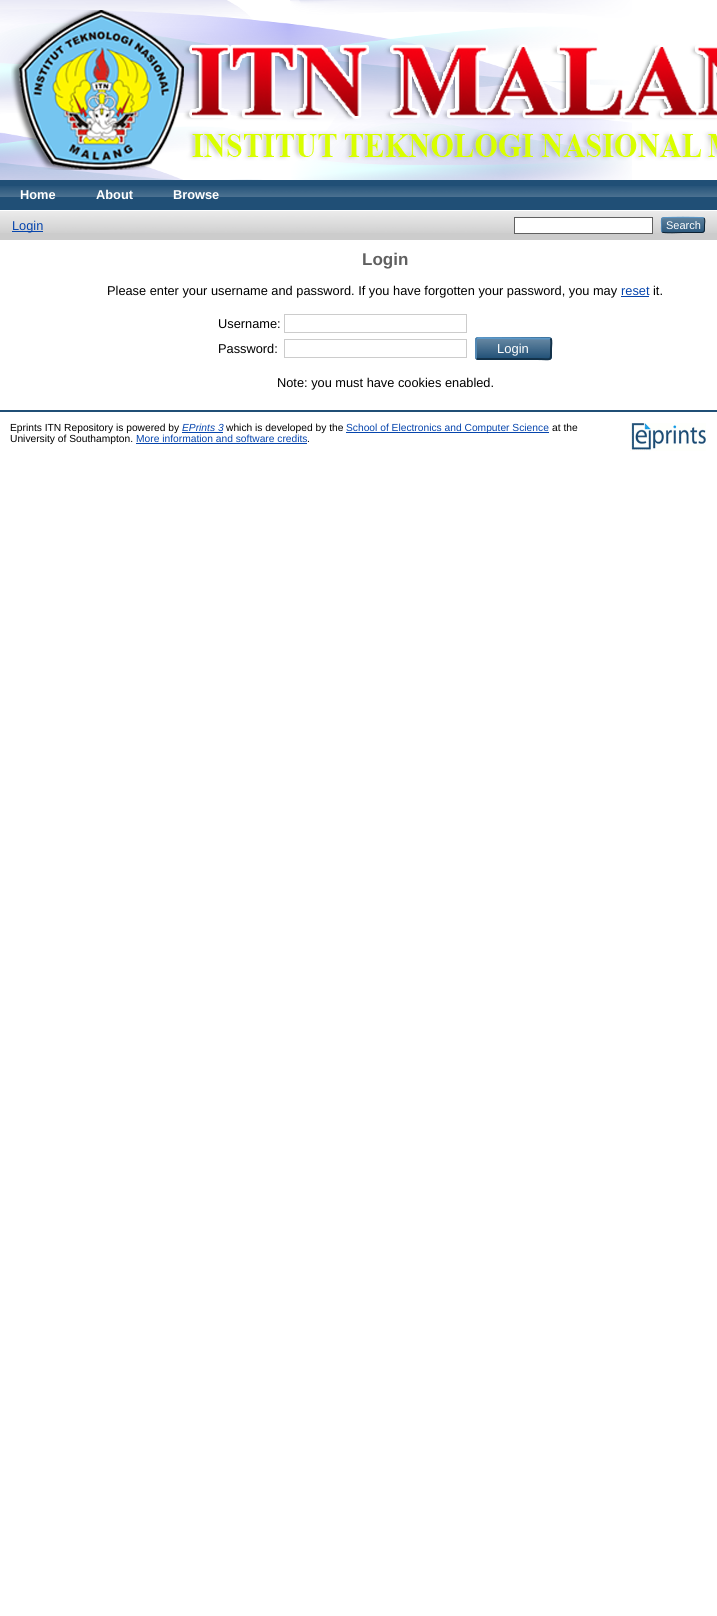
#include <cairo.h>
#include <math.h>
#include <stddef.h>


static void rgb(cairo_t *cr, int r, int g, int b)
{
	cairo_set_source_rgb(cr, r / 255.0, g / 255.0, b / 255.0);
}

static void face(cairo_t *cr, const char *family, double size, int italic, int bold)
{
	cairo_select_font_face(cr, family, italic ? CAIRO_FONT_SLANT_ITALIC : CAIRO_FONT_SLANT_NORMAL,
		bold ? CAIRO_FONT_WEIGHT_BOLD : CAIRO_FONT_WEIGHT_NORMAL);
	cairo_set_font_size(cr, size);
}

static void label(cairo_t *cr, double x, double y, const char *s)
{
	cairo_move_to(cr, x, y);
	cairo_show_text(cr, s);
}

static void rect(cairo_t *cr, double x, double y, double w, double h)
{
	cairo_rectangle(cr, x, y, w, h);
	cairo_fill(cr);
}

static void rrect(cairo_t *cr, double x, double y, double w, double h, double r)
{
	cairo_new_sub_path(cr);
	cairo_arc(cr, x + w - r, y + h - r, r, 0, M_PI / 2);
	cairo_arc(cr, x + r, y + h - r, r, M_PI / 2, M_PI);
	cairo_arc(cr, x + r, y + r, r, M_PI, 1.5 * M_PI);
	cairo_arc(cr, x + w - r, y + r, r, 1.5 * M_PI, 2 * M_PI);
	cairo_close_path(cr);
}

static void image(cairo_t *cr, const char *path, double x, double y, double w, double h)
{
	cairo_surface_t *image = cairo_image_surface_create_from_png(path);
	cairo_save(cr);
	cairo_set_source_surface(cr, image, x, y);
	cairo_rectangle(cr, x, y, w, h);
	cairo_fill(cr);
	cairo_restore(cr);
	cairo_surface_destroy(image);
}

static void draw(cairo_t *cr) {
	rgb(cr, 255, 255, 255);
	cairo_paint(cr);
	image(cr, "image0.png", 0, 0, 632, 180);
	image(cr, "image1.png", 11, 10, 706, 160);
	rgb(cr, 32, 79, 118);
	rect(cr, 0, 180, 717, 30);
	image(cr, "image2.png", 0, 186, 717, 11);
	face(cr, "Liberation Sans", 12.8, 0, 1);
	rgb(cr, 255, 255, 255);
	label(cr, 20, 199, "Home");
	label(cr, 96, 199, "About");
	label(cr, 173, 199, "Browse");
	rgb(cr, 204, 204, 204);
	rect(cr, 0, 211, 717, 29);
	image(cr, "image3.png", 0, 211, 717, 22);
	rgb(cr, 6, 69, 173);
	rect(cr, 12, 231, 31, 1);
	face(cr, "Liberation Sans", 12.8, 0, 0);
	label(cr, 12, 230, "Login");
	rgb(cr, 255, 255, 255);
	cairo_rectangle(cr, 514.5, 217.5, 138, 16);
	cairo_fill_preserve(cr);
	rgb(cr, 96, 96, 96);
	cairo_set_line_width(cr, 1);
	cairo_stroke(cr);
	rgb(cr, 31, 79, 118);
	rrect(cr, 661, 217, 44, 16, 3);
	cairo_fill(cr);
	image(cr, "image4.png", 661, 217, 44, 16);
	cairo_new_path(cr);
	cairo_move_to(cr, 662, 218);
	cairo_curve_to(cr, 663.5, 217, 702.5, 217, 704, 218);
	rgb(cr, 91, 151, 199);
	cairo_stroke(cr);
	cairo_new_path(cr);
	cairo_move_to(cr, 704, 218);
	cairo_curve_to(cr, 705.5, 220, 704.5, 223, 704.5, 225);
	cairo_curve_to(cr, 704.5, 233.5, 705, 232.5, 695.5, 232.5);
	cairo_line_to(cr, 683, 232.5);
	cairo_curve_to(cr, 680, 232.5, 664, 233.5, 662, 232);
	rgb(cr, 13, 33, 49);
	cairo_stroke(cr);
	cairo_new_path(cr);
	cairo_move_to(cr, 662, 232);
	cairo_curve_to(cr, 661, 230.5, 661.5, 226.5, 661.5, 225);
	cairo_curve_to(cr, 661.5, 223.5, 661, 219.5, 662, 218);
	rgb(cr, 82, 135, 179);
	cairo_stroke(cr);
	face(cr, "Liberation Sans", 11, 0, 0);
	rgb(cr, 255, 255, 255);
	label(cr, 666, 229, "Search");
	face(cr, "Liberation Sans", 17, 0, 1);
	rgb(cr, 96, 96, 96);
	label(cr, 362, 265, "Login");
	face(cr, "Liberation Sans", 12.8, 0, 0);
	rgb(cr, 0, 0, 0);
	label(cr, 107, 295, "Please enter your username and password. If you have forgotten your password, you may");
	rgb(cr, 6, 69, 173);
	label(cr, 621, 295, "reset");
	rect(cr, 621, 296, 28, 1);
	rgb(cr, 0, 0, 0);
	label(cr, 653, 295, "it.");
	label(cr, 218, 328, "Username:");
	cairo_rectangle(cr, 284.5, 314.5, 182, 18);
	rgb(cr, 204, 204, 204);
	cairo_stroke(cr);
	rgb(cr, 0, 0, 0);
	label(cr, 218, 353, "Password:");
	cairo_rectangle(cr, 284.5, 339.5, 182, 18);
	rgb(cr, 204, 204, 204);
	cairo_stroke(cr);
	rgb(cr, 31, 79, 118);
	rrect(cr, 475, 337, 77, 23, 3);
	cairo_fill(cr);
	image(cr, "image5.png", 475, 339, 77, 19);
	cairo_new_path(cr);
	cairo_move_to(cr, 476.5, 338.5);
	cairo_line_to(cr, 478, 338);
	cairo_line_to(cr, 550.5, 338.5);
	rgb(cr, 91, 151, 199);
	cairo_set_line_width(cr, 2);
	cairo_stroke(cr);
	cairo_new_path(cr);
	cairo_move_to(cr, 550.5, 338.5);
	cairo_curve_to(cr, 552, 340, 551, 346.5, 551, 348.5);
	cairo_curve_to(cr, 551, 362, 552.5, 359, 537, 359);
	cairo_line_to(cr, 478, 359);
	cairo_line_to(cr, 476.5, 358.5);
	rgb(cr, 19, 50, 74);
	cairo_stroke(cr);
	cairo_new_path(cr);
	cairo_move_to(cr, 476.5, 358.5);
	cairo_curve_to(cr, 476, 358, 476, 357.5, 476, 357);
	cairo_line_to(cr, 476, 340);
	cairo_curve_to(cr, 476, 339.5, 476, 339, 476.5, 338.5);
	rgb(cr, 82, 135, 179);
	cairo_stroke(cr);
	face(cr, "Liberation Sans", 13, 0, 0);
	rgb(cr, 255, 255, 255);
	label(cr, 497, 353, "Login");
	face(cr, "Liberation Sans", 12.8, 0, 0);
	rgb(cr, 0, 0, 0);
	label(cr, 277, 387, "Note: you must have cookies enabled.");
	rgb(cr, 32, 79, 118);
	rect(cr, 0, 410, 717, 2);
	face(cr, "Liberation Sans", 10.25, 0, 0);
	rgb(cr, 0, 0, 0);
	label(cr, 10, 431, "Eprints ITN Repository is powered by");
	face(cr, "Liberation Sans", 10.25, 1, 0);
	rgb(cr, 6, 69, 173);
	label(cr, 182, 431, "EPrints 3");
	rect(cr, 182, 432, 41, 1);
	face(cr, "Liberation Sans", 10.25, 0, 0);
	rgb(cr, 0, 0, 0);
	label(cr, 226, 431, "which is developed by the");
	rgb(cr, 6, 69, 173);
	rect(cr, 346, 432, 203, 1);
	label(cr, 346, 431, "School of Electronics and Computer Science");
	rgb(cr, 0, 0, 0);
	label(cr, 552, 431, "at the");
	label(cr, 10, 442, "University of Southampton.");
	rgb(cr, 6, 69, 173);
	label(cr, 136, 442, "More information and software credits");
	rect(cr, 136, 443, 171, 1);
	rgb(cr, 0, 0, 0);
	label(cr, 307, 442, ".");
	image(cr, "image6.png", 630, 423, 76, 28);
}

int main(void) {
	cairo_surface_t *surface = cairo_image_surface_create(CAIRO_FORMAT_RGB24, 717, 1616);
	cairo_t *cr = cairo_create(surface);
	cairo_font_options_t *options = cairo_font_options_create();
	cairo_font_options_set_hint_metrics(options, CAIRO_HINT_METRICS_OFF);
	cairo_font_options_set_hint_style(options, CAIRO_HINT_STYLE_NONE);
	cairo_set_font_options(cr, options);
	cairo_set_miter_limit(cr, 4);
	draw(cr);
	cairo_surface_write_to_png(surface, "render.png");
	cairo_font_options_destroy(options);
	cairo_destroy(cr);
	cairo_surface_destroy(surface);
	return 0;
}
